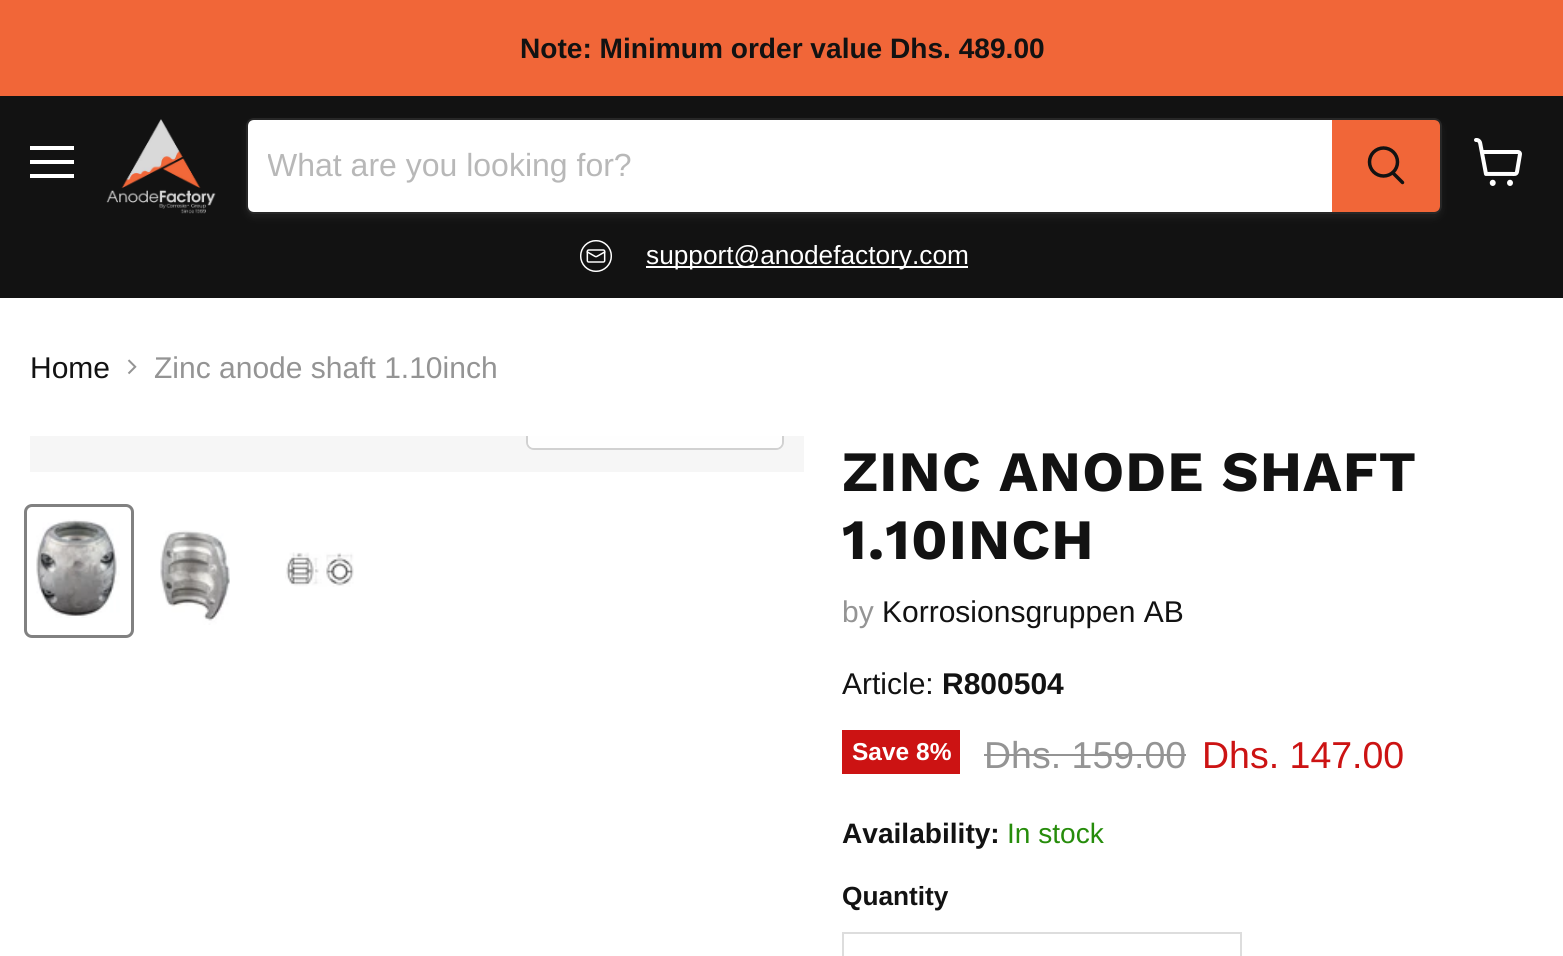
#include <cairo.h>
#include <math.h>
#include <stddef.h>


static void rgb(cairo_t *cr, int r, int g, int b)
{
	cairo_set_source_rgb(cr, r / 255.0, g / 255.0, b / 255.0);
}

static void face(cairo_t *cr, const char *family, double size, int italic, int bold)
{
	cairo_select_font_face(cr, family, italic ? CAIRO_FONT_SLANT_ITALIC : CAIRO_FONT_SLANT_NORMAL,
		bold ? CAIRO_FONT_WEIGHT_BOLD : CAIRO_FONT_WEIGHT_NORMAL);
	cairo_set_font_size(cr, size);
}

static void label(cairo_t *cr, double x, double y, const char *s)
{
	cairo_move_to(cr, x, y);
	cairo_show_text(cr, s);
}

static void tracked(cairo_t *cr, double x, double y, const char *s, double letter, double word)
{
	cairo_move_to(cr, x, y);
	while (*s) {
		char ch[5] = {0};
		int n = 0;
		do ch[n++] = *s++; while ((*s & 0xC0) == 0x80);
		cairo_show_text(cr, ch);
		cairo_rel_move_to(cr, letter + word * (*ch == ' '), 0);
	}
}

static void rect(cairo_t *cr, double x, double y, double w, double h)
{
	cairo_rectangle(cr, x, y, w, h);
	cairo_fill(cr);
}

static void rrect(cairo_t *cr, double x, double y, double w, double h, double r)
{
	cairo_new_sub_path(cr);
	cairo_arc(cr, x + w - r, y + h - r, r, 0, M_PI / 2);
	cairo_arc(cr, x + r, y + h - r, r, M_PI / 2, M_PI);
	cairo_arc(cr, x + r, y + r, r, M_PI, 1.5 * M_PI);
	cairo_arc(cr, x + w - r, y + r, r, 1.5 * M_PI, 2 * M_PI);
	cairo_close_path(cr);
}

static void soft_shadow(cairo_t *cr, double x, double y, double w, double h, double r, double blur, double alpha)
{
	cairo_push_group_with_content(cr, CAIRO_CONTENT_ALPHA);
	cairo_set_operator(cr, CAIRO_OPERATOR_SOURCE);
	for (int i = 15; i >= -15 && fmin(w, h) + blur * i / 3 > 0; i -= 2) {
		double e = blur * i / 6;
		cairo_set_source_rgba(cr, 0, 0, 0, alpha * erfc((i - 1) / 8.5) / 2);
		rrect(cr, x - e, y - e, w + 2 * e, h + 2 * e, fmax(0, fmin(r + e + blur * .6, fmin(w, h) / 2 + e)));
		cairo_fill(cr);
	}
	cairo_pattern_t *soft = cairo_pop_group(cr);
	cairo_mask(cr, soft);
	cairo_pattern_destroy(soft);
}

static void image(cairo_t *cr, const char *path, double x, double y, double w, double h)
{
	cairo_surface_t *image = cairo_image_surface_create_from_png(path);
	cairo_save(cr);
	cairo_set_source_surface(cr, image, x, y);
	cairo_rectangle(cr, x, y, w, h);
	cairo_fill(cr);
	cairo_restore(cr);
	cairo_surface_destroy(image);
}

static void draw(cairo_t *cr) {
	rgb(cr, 255, 255, 255);
	cairo_paint(cr);
	rgb(cr, 241, 102, 56);
	rect(cr, 0, 0, 1563, 96);
	face(cr, "Liberation Sans", 28.1, 0, 1);
	rgb(cr, 18, 18, 18);
	label(cr, 520, 58, "Note: Minimum order value Dhs. 489.00");
	rect(cr, 0, 96, 1563, 202);
	rgb(cr, 255, 255, 255);
	rect(cr, 30, 146, 44, 4);
	rect(cr, 30, 160, 44, 4);
	rect(cr, 30, 174, 44, 4);
	image(cr, "image0.png", 106, 119, 110, 95);
	cairo_save(cr);
	cairo_set_fill_rule(cr, CAIRO_FILL_RULE_EVEN_ODD);
	cairo_new_path(cr);
	cairo_move_to(cr, 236, 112);
	cairo_line_to(cr, 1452, 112);
	cairo_line_to(cr, 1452, 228);
	cairo_line_to(cr, 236, 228);
	cairo_close_path(cr);
	cairo_move_to(cr, 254, 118);
	cairo_line_to(cr, 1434, 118);
	cairo_curve_to(cr, 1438.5, 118, 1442, 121.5, 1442, 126);
	cairo_line_to(cr, 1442, 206);
	cairo_curve_to(cr, 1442, 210.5, 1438.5, 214, 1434, 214);
	cairo_line_to(cr, 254, 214);
	cairo_curve_to(cr, 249.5, 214, 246, 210.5, 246, 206);
	cairo_line_to(cr, 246, 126);
	cairo_curve_to(cr, 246, 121.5, 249.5, 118, 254, 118);
	cairo_close_path(cr);
	cairo_clip(cr);
	rgb(cr, 128, 128, 128);
	soft_shadow(cr, 246, 122, 1196, 96, 8, 3, 0.11);
	cairo_restore(cr);
	rrect(cr, 247, 119, 1194, 94, 7);
	cairo_set_source_rgba(cr, 0.502, 0.502, 0.502, 0.2);
	cairo_stroke(cr);
	rgb(cr, 255, 255, 255);
	cairo_new_path(cr);
	cairo_move_to(cr, 254, 120);
	cairo_line_to(cr, 1332, 120);
	cairo_line_to(cr, 1332, 212);
	cairo_line_to(cr, 254, 212);
	cairo_curve_to(cr, 250.5, 212, 248, 209.5, 248, 206);
	cairo_line_to(cr, 248, 126);
	cairo_curve_to(cr, 248, 122.5, 250.5, 120, 254, 120);
	cairo_close_path(cr);
	cairo_fill(cr);
	cairo_save(cr);
	cairo_rectangle(cr, 268, 148, 1044, 36);
	cairo_clip(cr);
	face(cr, "Liberation Sans", 32, 0, 0);
	rgb(cr, 184, 184, 184);
	label(cr, 267, 176, "What are you looking for?");
	cairo_restore(cr);
	rgb(cr, 241, 102, 56);
	cairo_new_path(cr);
	cairo_move_to(cr, 1333, 121);
	cairo_line_to(cr, 1434, 121);
	cairo_curve_to(cr, 1437, 121, 1439, 123, 1439, 126);
	cairo_line_to(cr, 1439, 206);
	cairo_curve_to(cr, 1439, 209, 1437, 211, 1434, 211);
	cairo_line_to(cr, 1333, 211);
	cairo_close_path(cr);
	cairo_fill_preserve(cr);
	cairo_stroke(cr);
	cairo_new_path(cr);
	cairo_move_to(cr, 1402.5, 182.5);
	cairo_line_to(cr, 1393, 173);
	rgb(cr, 18, 18, 18);
	cairo_set_line_width(cr, 3.5);
	cairo_set_line_cap(cr, CAIRO_LINE_CAP_ROUND);
	cairo_stroke(cr);
	cairo_arc(cr, 1383.5, 162, 14, 0, 2 * M_PI);
	cairo_set_line_cap(cr, CAIRO_LINE_CAP_BUTT);
	cairo_stroke(cr);
	image(cr, "image1.png", 580, 240, 32, 32);
	rgb(cr, 255, 255, 255);
	rect(cr, 646, 266, 322, 2);
	face(cr, "Liberation Sans", 26.25, 0, 0);
	label(cr, 646, 264, "support@anodefactory.com");
	image(cr, "image2.png", 1474, 138, 48, 48);
	face(cr, "Liberation Sans", 30, 0, 0);
	rgb(cr, 18, 18, 18);
	label(cr, 30, 378, "Home");
	image(cr, "image3.png", 127, 359, 10, 16);
	rgb(cr, 148, 148, 148);
	label(cr, 154, 378, "Zinc anode shaft 1.10inch");
	rgb(cr, 246, 246, 246);
	rect(cr, 30, 436, 774, 36);
	cairo_save(cr);
	cairo_rectangle(cr, 30, 436, 774, 36);
	cairo_clip(cr);
	rrect(cr, 527, 393, 256, 56, 7);
	rgb(cr, 209, 209, 209);
	cairo_set_line_width(cr, 2);
	cairo_stroke(cr);
	cairo_restore(cr);
	cairo_set_source_rgba(cr, 1, 1, 1, 0.9);
	cairo_new_path(cr);
	cairo_move_to(cr, 528, 436);
	cairo_line_to(cr, 782, 436);
	cairo_line_to(cr, 782, 442);
	cairo_curve_to(cr, 782, 445.5, 779.5, 448, 776, 448);
	cairo_line_to(cr, 534, 448);
	cairo_curve_to(cr, 530.5, 448, 528, 445.5, 528, 442);
	cairo_close_path(cr);
	cairo_fill(cr);
	rrect(cr, 25.5, 505.5, 107, 131, 6.5);
	rgb(cr, 129, 129, 129);
	cairo_set_line_width(cr, 3);
	cairo_stroke(cr);
	image(cr, "image4.png", 36, 519, 84, 99);
	image(cr, "image5.png", 160, 530, 70, 95);
	image(cr, "image6.png", 285, 552, 69, 35);
	face(cr, "Work Sans", 57, 0, 1);
	rgb(cr, 18, 18, 18);
	tracked(cr, 842, 491, "ZINC ANODE SHAFT", 1.1, 0);
	tracked(cr, 842, 559, "1.10INCH", 1.1, 0);
	face(cr, "Liberation Sans", 30, 0, 0);
	rgb(cr, 148, 148, 148);
	label(cr, 842, 622, "by");
	rgb(cr, 18, 18, 18);
	label(cr, 882, 622, "Korrosionsgruppen AB");
	label(cr, 842, 694, "Article:");
	face(cr, "Liberation Sans", 30, 0, 1);
	label(cr, 942, 694, "R800504");
	rgb(cr, 204, 19, 19);
	rect(cr, 842, 730, 118, 44);
	face(cr, "Liberation Sans", 24.5, 0, 1);
	rgb(cr, 255, 255, 255);
	label(cr, 852, 760, "Save 8%");
	face(cr, "Liberation Sans", 37.5, 0, 0);
	rgb(cr, 148, 148, 148);
	label(cr, 984, 768, "Dhs. 159.00");
	rect(cr, 984, 754, 202, 2);
	rgb(cr, 204, 19, 19);
	label(cr, 1202, 768, "Dhs. 147.00");
	face(cr, "Liberation Sans", 28.1, 0, 1);
	rgb(cr, 18, 18, 18);
	label(cr, 842, 843, "Availability:");
	face(cr, "Liberation Sans", 28.1, 0, 0);
	rgb(cr, 38, 140, 11);
	label(cr, 1007, 843, "In stock");
	face(cr, "Liberation Sans", 26.25, 0, 1);
	rgb(cr, 18, 18, 18);
	label(cr, 842, 905, "Quantity");
	cairo_rectangle(cr, 843, 933, 398, 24);
	rgb(cr, 221, 221, 221);
	cairo_set_line_width(cr, 2);
	cairo_stroke(cr);
}

int main(void) {
	cairo_surface_t *surface = cairo_image_surface_create(CAIRO_FORMAT_RGB24, 1563, 956);
	cairo_t *cr = cairo_create(surface);
	cairo_font_options_t *options = cairo_font_options_create();
	cairo_font_options_set_hint_metrics(options, CAIRO_HINT_METRICS_OFF);
	cairo_font_options_set_hint_style(options, CAIRO_HINT_STYLE_NONE);
	cairo_set_font_options(cr, options);
	cairo_set_miter_limit(cr, 4);
	draw(cr);
	cairo_surface_write_to_png(surface, "render.png");
	cairo_font_options_destroy(options);
	cairo_destroy(cr);
	cairo_surface_destroy(surface);
	return 0;
}
